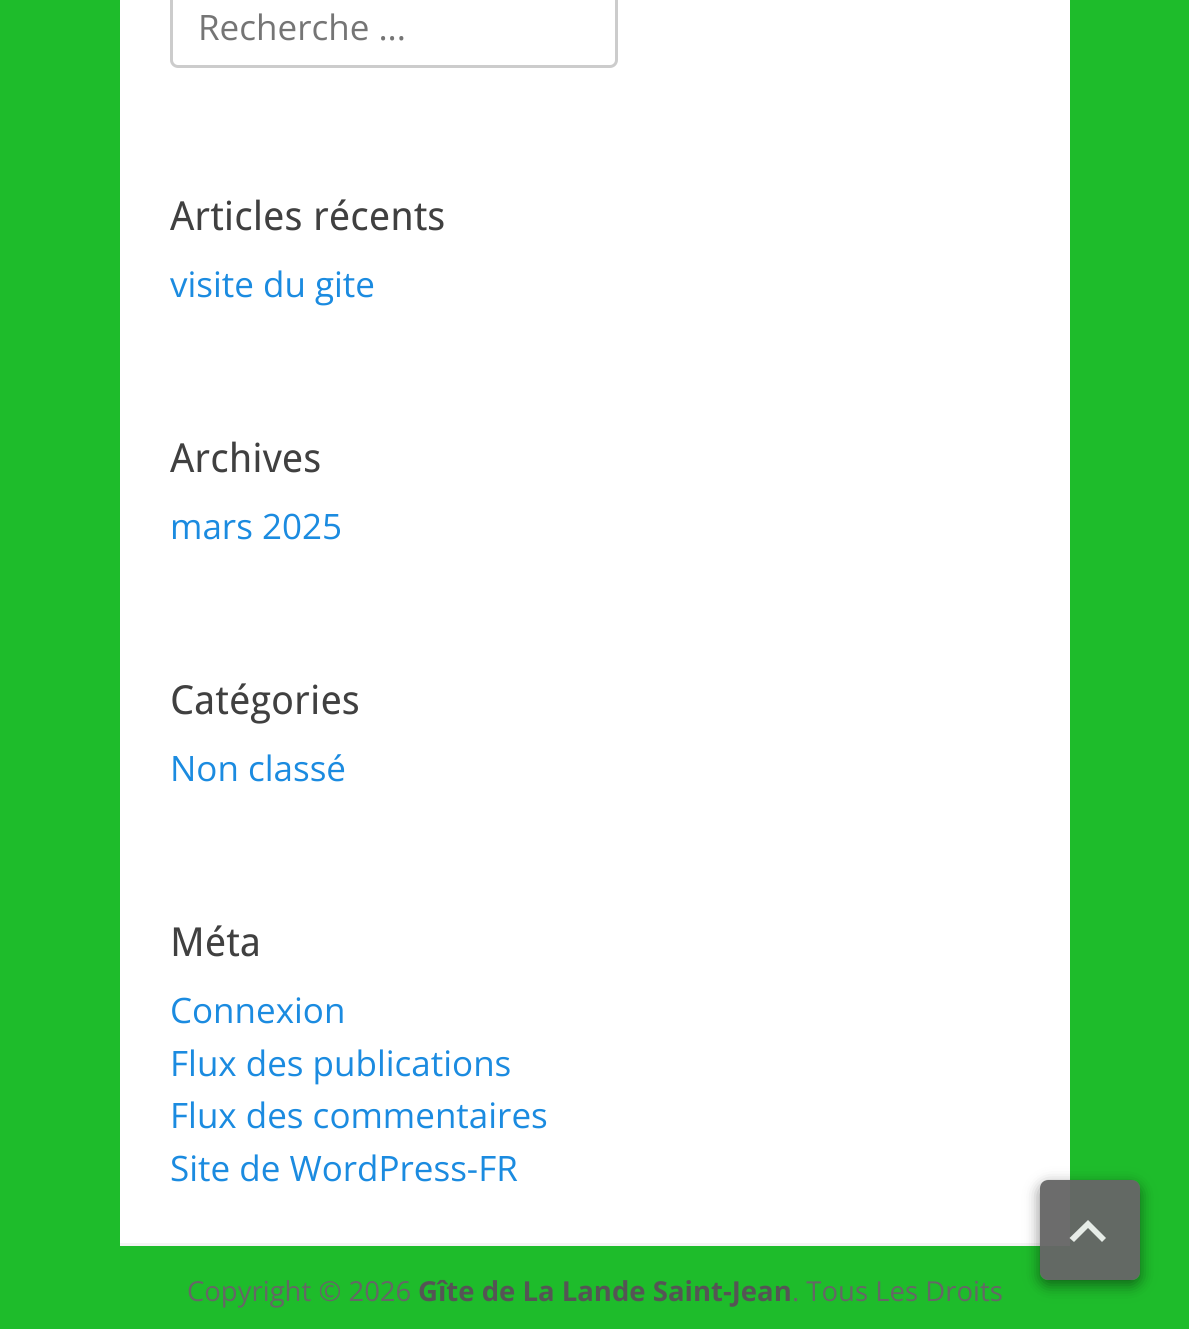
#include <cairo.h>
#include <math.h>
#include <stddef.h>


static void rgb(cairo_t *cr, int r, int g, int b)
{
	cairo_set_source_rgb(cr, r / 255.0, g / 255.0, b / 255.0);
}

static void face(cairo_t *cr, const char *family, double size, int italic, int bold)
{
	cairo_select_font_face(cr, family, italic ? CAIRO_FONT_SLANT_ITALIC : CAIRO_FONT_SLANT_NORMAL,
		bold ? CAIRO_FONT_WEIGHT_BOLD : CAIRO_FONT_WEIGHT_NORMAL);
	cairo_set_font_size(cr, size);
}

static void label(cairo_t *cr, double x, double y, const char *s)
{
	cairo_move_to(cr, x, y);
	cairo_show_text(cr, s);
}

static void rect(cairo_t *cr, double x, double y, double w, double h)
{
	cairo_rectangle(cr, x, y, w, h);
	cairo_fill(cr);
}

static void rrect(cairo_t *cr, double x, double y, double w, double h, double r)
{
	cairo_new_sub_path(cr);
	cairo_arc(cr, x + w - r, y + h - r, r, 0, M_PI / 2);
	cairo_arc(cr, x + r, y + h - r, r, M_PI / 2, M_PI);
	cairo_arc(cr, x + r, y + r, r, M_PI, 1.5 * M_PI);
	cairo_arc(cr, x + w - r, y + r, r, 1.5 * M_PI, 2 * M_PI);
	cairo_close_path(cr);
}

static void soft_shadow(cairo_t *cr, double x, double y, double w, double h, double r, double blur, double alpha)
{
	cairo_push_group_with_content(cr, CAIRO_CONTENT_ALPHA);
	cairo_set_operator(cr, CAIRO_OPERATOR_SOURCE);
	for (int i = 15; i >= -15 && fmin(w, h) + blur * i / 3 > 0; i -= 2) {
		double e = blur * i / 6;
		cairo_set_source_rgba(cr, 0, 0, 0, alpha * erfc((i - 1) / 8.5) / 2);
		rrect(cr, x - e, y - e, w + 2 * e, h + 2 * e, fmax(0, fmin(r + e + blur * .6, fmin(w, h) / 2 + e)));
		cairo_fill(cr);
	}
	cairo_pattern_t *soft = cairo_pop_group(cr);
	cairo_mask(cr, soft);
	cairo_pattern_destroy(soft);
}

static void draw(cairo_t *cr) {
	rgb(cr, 30, 188, 43);
	cairo_paint(cr);
	rgb(cr, 255, 255, 255);
	rect(cr, 120, 0, 950, 1243);
	rrect(cr, 171.5, -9.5, 445, 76, 6.5);
	rgb(cr, 204, 204, 204);
	cairo_set_line_width(cr, 3);
	cairo_stroke(cr);
	face(cr, "Open Sans", 35, 0, 0);
	rgb(cr, 117, 117, 117);
	label(cr, 198, 40, "Recherche ...");
	face(cr, "Droid Sans", 40, 0, 0);
	rgb(cr, 64, 64, 64);
	label(cr, 170, 230, "Articles récents");
	face(cr, "Open Sans", 35, 0, 0);
	rgb(cr, 27, 139, 224);
	label(cr, 170, 297, "visite du gite");
	face(cr, "Droid Sans", 40, 0, 0);
	rgb(cr, 64, 64, 64);
	label(cr, 170, 472, "Archives");
	face(cr, "Open Sans", 35, 0, 0);
	rgb(cr, 27, 139, 224);
	label(cr, 170, 539, "mars 2025");
	face(cr, "Droid Sans", 40, 0, 0);
	rgb(cr, 64, 64, 64);
	label(cr, 170, 714, "Catégories");
	face(cr, "Open Sans", 35, 0, 0);
	rgb(cr, 27, 139, 224);
	label(cr, 170, 781, "Non classé");
	face(cr, "Droid Sans", 40, 0, 0);
	rgb(cr, 64, 64, 64);
	label(cr, 170, 956, "Méta");
	face(cr, "Open Sans", 35, 0, 0);
	rgb(cr, 27, 139, 224);
	label(cr, 170, 1023, "Connexion");
	label(cr, 170, 1076, "Flux des publications");
	label(cr, 170, 1128, "Flux des commentaires");
	label(cr, 170, 1181, "Site de WordPress-FR");
	rgb(cr, 244, 244, 244);
	rect(cr, 120, 1243, 950, 3);
	face(cr, "Open Sans", 27.5, 0, 0);
	rgb(cr, 102, 102, 102);
	label(cr, 187, 1301, "Copyright © 2026");
	face(cr, "Open Sans", 27.5, 0, 1);
	rgb(cr, 85, 85, 85);
	label(cr, 418, 1301, "Gîte de La Lande Saint-Jean");
	face(cr, "Open Sans", 27.5, 0, 0);
	rgb(cr, 102, 102, 102);
	label(cr, 792, 1301, ". Tous Les Droits");
	cairo_save(cr);
	cairo_set_fill_rule(cr, CAIRO_FILL_RULE_EVEN_ODD);
	cairo_new_path(cr);
	cairo_move_to(cr, 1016, 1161);
	cairo_line_to(cr, 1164, 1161);
	cairo_line_to(cr, 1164, 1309);
	cairo_line_to(cr, 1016, 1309);
	cairo_close_path(cr);
	cairo_move_to(cr, 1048, 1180);
	cairo_line_to(cr, 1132, 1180);
	cairo_curve_to(cr, 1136.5, 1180, 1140, 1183.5, 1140, 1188);
	cairo_line_to(cr, 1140, 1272);
	cairo_curve_to(cr, 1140, 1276.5, 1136.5, 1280, 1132, 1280);
	cairo_line_to(cr, 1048, 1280);
	cairo_curve_to(cr, 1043.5, 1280, 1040, 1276.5, 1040, 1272);
	cairo_line_to(cr, 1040, 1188);
	cairo_curve_to(cr, 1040, 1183.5, 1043.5, 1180, 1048, 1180);
	cairo_close_path(cr);
	cairo_clip(cr);
	rgb(cr, 0, 0, 0);
	soft_shadow(cr, 1040, 1185, 100, 100, 8, 7.5, 0.48);
	cairo_restore(cr);
	cairo_set_source_rgba(cr, 0.4, 0.4, 0.4, 0.96);
	rrect(cr, 1040, 1180, 100, 100, 8);
	cairo_fill(cr);
	rgb(cr, 230, 236, 231);
	cairo_new_path(cr);
	cairo_move_to(cr, 1102, 1242);
	cairo_line_to(cr, 1088, 1228);
	cairo_line_to(cr, 1074, 1242);
	cairo_line_to(cr, 1069.5, 1238);
	cairo_line_to(cr, 1088, 1220);
	cairo_line_to(cr, 1106, 1238);
	cairo_close_path(cr);
	cairo_fill(cr);
}

int main(void) {
	cairo_surface_t *surface = cairo_image_surface_create(CAIRO_FORMAT_RGB24, 1189, 1329);
	cairo_t *cr = cairo_create(surface);
	cairo_font_options_t *options = cairo_font_options_create();
	cairo_font_options_set_hint_metrics(options, CAIRO_HINT_METRICS_OFF);
	cairo_font_options_set_hint_style(options, CAIRO_HINT_STYLE_NONE);
	cairo_set_font_options(cr, options);
	cairo_set_miter_limit(cr, 4);
	draw(cr);
	cairo_surface_write_to_png(surface, "render.png");
	cairo_font_options_destroy(options);
	cairo_destroy(cr);
	cairo_surface_destroy(surface);
	return 0;
}
